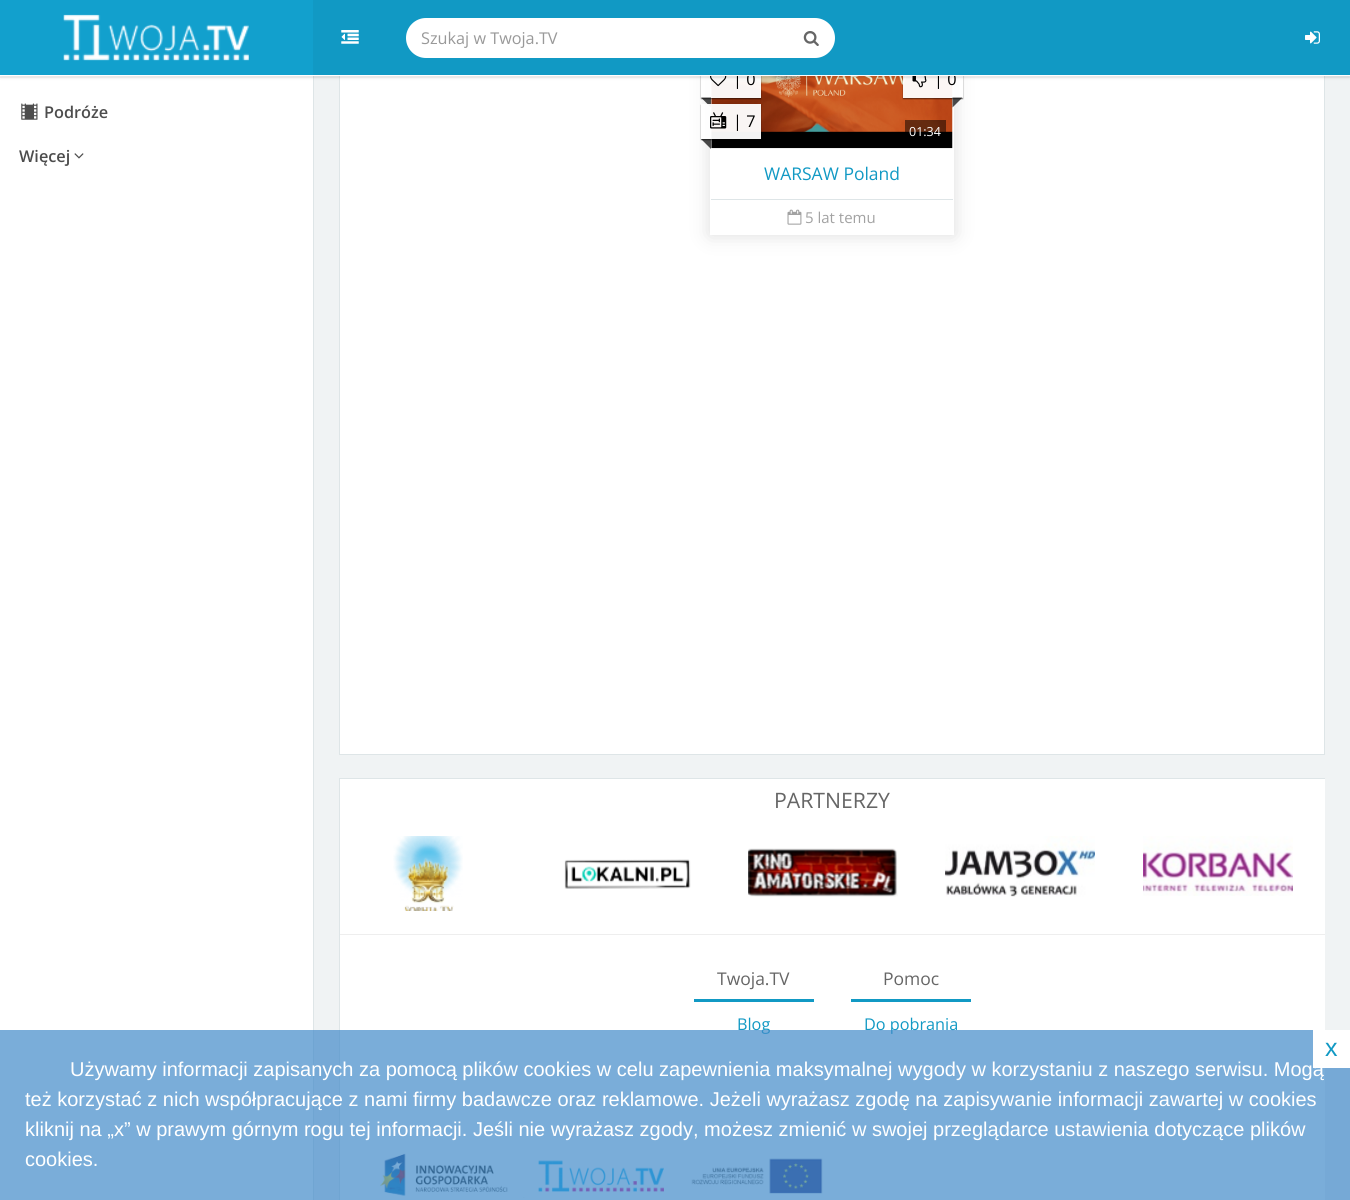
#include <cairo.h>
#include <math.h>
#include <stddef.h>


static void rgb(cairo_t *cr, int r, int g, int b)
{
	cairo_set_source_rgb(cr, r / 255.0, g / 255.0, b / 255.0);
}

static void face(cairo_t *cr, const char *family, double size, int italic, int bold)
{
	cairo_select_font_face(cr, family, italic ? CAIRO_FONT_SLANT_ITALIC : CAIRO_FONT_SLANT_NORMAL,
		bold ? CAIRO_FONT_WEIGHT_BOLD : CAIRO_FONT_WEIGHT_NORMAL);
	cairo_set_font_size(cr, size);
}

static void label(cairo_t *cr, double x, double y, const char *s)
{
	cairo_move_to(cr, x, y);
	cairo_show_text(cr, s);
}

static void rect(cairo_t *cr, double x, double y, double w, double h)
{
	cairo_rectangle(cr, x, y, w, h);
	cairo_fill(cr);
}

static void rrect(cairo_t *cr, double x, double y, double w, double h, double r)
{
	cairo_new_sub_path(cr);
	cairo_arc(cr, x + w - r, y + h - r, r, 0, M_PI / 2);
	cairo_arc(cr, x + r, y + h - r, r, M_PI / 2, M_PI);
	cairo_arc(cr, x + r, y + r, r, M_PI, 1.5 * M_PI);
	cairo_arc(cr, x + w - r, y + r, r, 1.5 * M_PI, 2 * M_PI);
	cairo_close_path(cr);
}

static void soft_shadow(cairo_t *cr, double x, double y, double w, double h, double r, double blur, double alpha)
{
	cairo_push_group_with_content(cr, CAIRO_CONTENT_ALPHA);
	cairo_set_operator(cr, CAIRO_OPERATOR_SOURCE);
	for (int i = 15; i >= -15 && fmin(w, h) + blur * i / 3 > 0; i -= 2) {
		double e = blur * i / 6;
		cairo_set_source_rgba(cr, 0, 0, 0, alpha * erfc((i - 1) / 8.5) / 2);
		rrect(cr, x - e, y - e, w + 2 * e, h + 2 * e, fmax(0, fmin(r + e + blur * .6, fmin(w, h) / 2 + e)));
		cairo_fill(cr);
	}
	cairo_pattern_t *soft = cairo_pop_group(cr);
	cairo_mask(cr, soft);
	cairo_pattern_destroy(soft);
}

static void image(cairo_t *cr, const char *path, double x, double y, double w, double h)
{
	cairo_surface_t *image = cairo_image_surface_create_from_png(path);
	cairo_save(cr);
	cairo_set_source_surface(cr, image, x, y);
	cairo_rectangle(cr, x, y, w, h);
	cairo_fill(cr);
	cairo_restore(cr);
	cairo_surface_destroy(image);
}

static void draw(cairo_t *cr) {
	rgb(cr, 255, 255, 255);
	cairo_paint(cr);
	image(cr, "image0.png", 21, 103, 17, 17);
	face(cr, "Open Sans SemiBold", 16.25, 0, 0);
	rgb(cr, 77, 77, 77);
	label(cr, 44, 118, "Podróże");
	label(cr, 19, 162, "Więcej");
	image(cr, "image1.png", 74, 153, 10, 6);
	rgb(cr, 240, 243, 244);
	rect(cr, 314, 76, 1036, 1124);
	rgb(cr, 222, 229, 231);
	rect(cr, 313, 76, 1, 1124);
	rgb(cr, 255, 255, 255);
	rect(cr, 340, 76, 984, 678);
	cairo_rectangle(cr, 339.5, -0.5, 985, 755);
	rgb(cr, 222, 229, 231);
	cairo_set_line_width(cr, 1);
	cairo_stroke(cr);
	rgb(cr, 221, 221, 221);
	soft_shadow(cr, 710, 13, 244, 222, 0, 9.5, 1);
	rgb(cr, 255, 255, 255);
	rect(cr, 710, 76, 244, 159);
	image(cr, "image9.png", 711, 76, 242, 73);
	cairo_save(cr);
	cairo_set_fill_rule(cr, CAIRO_FILL_RULE_EVEN_ODD);
	cairo_new_path(cr);
	cairo_move_to(cr, 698, 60);
	cairo_line_to(cr, 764, 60);
	cairo_line_to(cr, 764, 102);
	cairo_line_to(cr, 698, 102);
	cairo_close_path(cr);
	cairo_move_to(cr, 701, 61);
	cairo_line_to(cr, 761, 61);
	cairo_line_to(cr, 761, 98);
	cairo_line_to(cr, 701, 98);
	cairo_close_path(cr);
	cairo_clip(cr);
	rgb(cr, 0, 0, 0);
	soft_shadow(cr, 701, 63, 60, 36, 0, 0.5, 0.5);
	cairo_restore(cr);
	cairo_set_source_rgba(cr, 1, 1, 1, 0.95);
	rect(cr, 701, 76, 60, 22);
	image(cr, "image6.png", 710, 76, 17, 11);
	cairo_save(cr);
	cairo_set_fill_rule(cr, CAIRO_FILL_RULE_EVEN_ODD);
	cairo_new_path(cr);
	cairo_move_to(cr, 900, 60);
	cairo_line_to(cr, 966, 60);
	cairo_line_to(cr, 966, 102);
	cairo_line_to(cr, 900, 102);
	cairo_close_path(cr);
	cairo_move_to(cr, 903, 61);
	cairo_line_to(cr, 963, 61);
	cairo_line_to(cr, 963, 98);
	cairo_line_to(cr, 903, 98);
	cairo_close_path(cr);
	cairo_clip(cr);
	rgb(cr, 0, 0, 0);
	soft_shadow(cr, 903, 63, 60, 36, 0, 0.5, 0.5);
	cairo_restore(cr);
	rect(cr, 903, 76, 60, 22);
	image(cr, "image8.png", 912, 76, 15, 12);
	cairo_set_source_rgba(cr, 0, 0, 0, 0.05);
	rect(cr, 0, 76, 1350, 2);
	rgb(cr, 0, 0, 0);
	soft_shadow(cr, 0, 3, 1350, 76, 0, 1, 0.05);
	face(cr, "Open Sans", 16.25, 0, 0);
	rgb(cr, 0, 0, 0);
	label(cr, 733, 85, "| 0");
	label(cr, 934, 85, "| 0");
	rgb(cr, 17, 153, 196);
	rect(cr, 313, 0, 1037, 75);
	rgb(cr, 255, 255, 255);
	rect(cr, 0, 75, 1350, 1);
	rgb(cr, 18, 160, 205);
	rect(cr, 0, 0, 313, 75);
	image(cr, "image2.png", 63, 14, 186, 47);
	image(cr, "image3.png", 341, 30, 18, 14);
	rgb(cr, 255, 255, 255);
	cairo_new_path(cr);
	cairo_move_to(cr, 788, 18);
	cairo_line_to(cr, 815, 18);
	cairo_curve_to(cr, 826, 18, 835, 27, 835, 38);
	cairo_curve_to(cr, 835, 49, 826, 58, 815, 58);
	cairo_line_to(cr, 788, 58);
	cairo_close_path(cr);
	cairo_fill(cr);
	cairo_new_path(cr);
	cairo_move_to(cr, 426, 18);
	cairo_line_to(cr, 789, 18);
	cairo_line_to(cr, 789, 58);
	cairo_line_to(cr, 426, 58);
	cairo_curve_to(cr, 415, 58, 406, 49, 406, 38);
	cairo_curve_to(cr, 406, 27, 415, 18, 426, 18);
	cairo_close_path(cr);
	cairo_fill(cr);
	rgb(cr, 153, 153, 153);
	label(cr, 421, 44, "Szukaj w Twoja.TV");
	image(cr, "image4.png", 803, 31, 16, 15);
	image(cr, "image5.png", 1305, 31, 15, 13);
	cairo_set_source_rgba(cr, 0, 0, 0, 0.7);
	cairo_new_path(cr);
	cairo_move_to(cr, 701, 97.5);
	cairo_line_to(cr, 711, 97.5);
	cairo_line_to(cr, 711, 107.5);
	cairo_close_path(cr);
	cairo_fill(cr);
	cairo_save(cr);
	cairo_set_fill_rule(cr, CAIRO_FILL_RULE_EVEN_ODD);
	cairo_new_path(cr);
	cairo_move_to(cr, 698, 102);
	cairo_line_to(cr, 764, 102);
	cairo_line_to(cr, 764, 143);
	cairo_line_to(cr, 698, 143);
	cairo_close_path(cr);
	cairo_move_to(cr, 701, 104);
	cairo_line_to(cr, 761, 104);
	cairo_line_to(cr, 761, 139);
	cairo_line_to(cr, 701, 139);
	cairo_close_path(cr);
	cairo_clip(cr);
	rgb(cr, 0, 0, 0);
	soft_shadow(cr, 701, 105, 60, 35, 0, 0.5, 0.5);
	cairo_restore(cr);
	cairo_set_source_rgba(cr, 1, 1, 1, 0.95);
	rect(cr, 701, 104, 60, 35);
	image(cr, "image7.png", 710, 112, 17, 17);
	rgb(cr, 0, 0, 0);
	label(cr, 733, 127, "| 7");
	cairo_set_source_rgba(cr, 0, 0, 0, 0.7);
	cairo_new_path(cr);
	cairo_move_to(cr, 701, 139);
	cairo_line_to(cr, 711, 139);
	cairo_line_to(cr, 711, 149);
	cairo_close_path(cr);
	cairo_fill(cr);
	cairo_new_path(cr);
	cairo_move_to(cr, 952.5, 97.5);
	cairo_line_to(cr, 962.5, 97.5);
	cairo_line_to(cr, 952.5, 107.5);
	cairo_close_path(cr);
	cairo_fill(cr);
	cairo_set_source_rgba(cr, 0, 0, 0, 0.5);
	rect(cr, 905, 120, 41, 12);
	face(cr, "Open Sans", 12.5, 0, 0);
	rgb(cr, 255, 255, 255);
	label(cr, 909, 136, "01:34");
	face(cr, "Open Sans", 17.5, 0, 0);
	rgb(cr, 17, 153, 196);
	label(cr, 764, 180, "WARSAW Poland");
	rgb(cr, 222, 229, 231);
	rect(cr, 711, 199, 242, 1);
	image(cr, "image10.png", 787, 209, 15, 16);
	face(cr, "Open Sans", 15, 0, 0);
	rgb(cr, 162, 162, 162);
	label(cr, 805, 223, "5 lat temu");
	rgb(cr, 255, 255, 255);
	rect(cr, 340, 779, 985, 421);
	rgb(cr, 222, 229, 231);
	rect(cr, 339, 778, 986, 1);
	rect(cr, 339, 778, 1, 422);
	face(cr, "Open Sans", 21.25, 0, 0);
	rgb(cr, 102, 102, 102);
	label(cr, 774, 808, "PARTNERZY");
	image(cr, "image11.png", 393, 836, 70, 75);
	image(cr, "image12.png", 564, 859, 127, 30);
	image(cr, "image13.png", 748, 848, 150, 49);
	image(cr, "image14.png", 945, 836, 150, 61);
	image(cr, "image15.png", 1143, 836, 150, 60);
	rgb(cr, 238, 238, 238);
	rect(cr, 340, 934, 985, 1);
	rgb(cr, 17, 153, 196);
	rect(cr, 694, 999, 120, 3);
	face(cr, "Open Sans", 17.5, 0, 0);
	rgb(cr, 102, 102, 102);
	label(cr, 717, 985, "Twoja.TV");
	face(cr, "Open Sans", 16.25, 0, 0);
	rgb(cr, 17, 153, 196);
	label(cr, 737, 1030, "Blog");
	rect(cr, 851, 999, 120, 3);
	face(cr, "Open Sans", 17.5, 0, 0);
	rgb(cr, 102, 102, 102);
	label(cr, 883, 985, "Pomoc");
	face(cr, "Open Sans", 16.25, 0, 0);
	rgb(cr, 17, 153, 196);
	label(cr, 864, 1030, "Do pobrania");
	image(cr, "image16.png", 380, 1153, 443, 45);
	cairo_set_source_rgba(cr, 0.259, 0.545, 0.792, 0.7);
	rect(cr, 0, 1030, 1350, 170);
	rgb(cr, 255, 255, 255);
	rect(cr, 1313, 1030, 37, 38);
	face(cr, "Liberation Sans", 25, 0, 0);
	rgb(cr, 17, 153, 196);
	label(cr, 1325, 1056, "x");
	face(cr, "Liberation Sans", 20, 0, 0);
	rgb(cr, 255, 255, 255);
	label(cr, 70, 1076, "Używamy informacji zapisanych za pomocą plików cookies w celu zapewnienia maksymalnej wygody w korzystaniu z naszego serwisu. Mogą");
	label(cr, 25, 1106, "też korzystać z nich współpracujące z nami firmy badawcze oraz reklamowe. Jeżeli wyrażasz zgodę na zapisywanie informacji zawartej w cookies");
	label(cr, 25, 1136, "kliknij na „x” w prawym górnym rogu tej informacji. Jeśli nie wyrażasz zgody, możesz zmienić w swojej przeglądarce ustawienia dotyczące plików");
	label(cr, 25, 1166, "cookies.");
}

int main(void) {
	cairo_surface_t *surface = cairo_image_surface_create(CAIRO_FORMAT_RGB24, 1350, 1200);
	cairo_t *cr = cairo_create(surface);
	cairo_font_options_t *options = cairo_font_options_create();
	cairo_font_options_set_hint_metrics(options, CAIRO_HINT_METRICS_OFF);
	cairo_font_options_set_hint_style(options, CAIRO_HINT_STYLE_NONE);
	cairo_set_font_options(cr, options);
	cairo_set_miter_limit(cr, 4);
	draw(cr);
	cairo_surface_write_to_png(surface, "render.png");
	cairo_font_options_destroy(options);
	cairo_destroy(cr);
	cairo_surface_destroy(surface);
	return 0;
}
